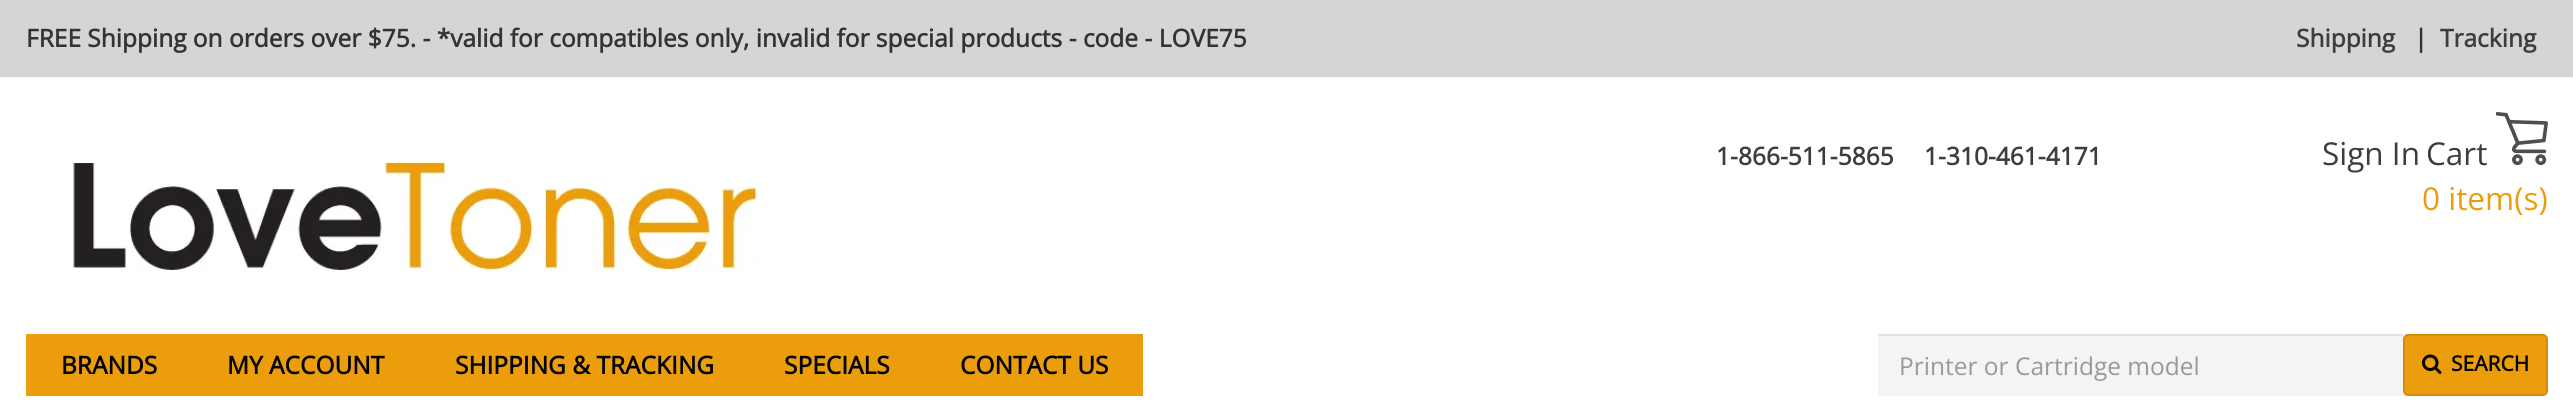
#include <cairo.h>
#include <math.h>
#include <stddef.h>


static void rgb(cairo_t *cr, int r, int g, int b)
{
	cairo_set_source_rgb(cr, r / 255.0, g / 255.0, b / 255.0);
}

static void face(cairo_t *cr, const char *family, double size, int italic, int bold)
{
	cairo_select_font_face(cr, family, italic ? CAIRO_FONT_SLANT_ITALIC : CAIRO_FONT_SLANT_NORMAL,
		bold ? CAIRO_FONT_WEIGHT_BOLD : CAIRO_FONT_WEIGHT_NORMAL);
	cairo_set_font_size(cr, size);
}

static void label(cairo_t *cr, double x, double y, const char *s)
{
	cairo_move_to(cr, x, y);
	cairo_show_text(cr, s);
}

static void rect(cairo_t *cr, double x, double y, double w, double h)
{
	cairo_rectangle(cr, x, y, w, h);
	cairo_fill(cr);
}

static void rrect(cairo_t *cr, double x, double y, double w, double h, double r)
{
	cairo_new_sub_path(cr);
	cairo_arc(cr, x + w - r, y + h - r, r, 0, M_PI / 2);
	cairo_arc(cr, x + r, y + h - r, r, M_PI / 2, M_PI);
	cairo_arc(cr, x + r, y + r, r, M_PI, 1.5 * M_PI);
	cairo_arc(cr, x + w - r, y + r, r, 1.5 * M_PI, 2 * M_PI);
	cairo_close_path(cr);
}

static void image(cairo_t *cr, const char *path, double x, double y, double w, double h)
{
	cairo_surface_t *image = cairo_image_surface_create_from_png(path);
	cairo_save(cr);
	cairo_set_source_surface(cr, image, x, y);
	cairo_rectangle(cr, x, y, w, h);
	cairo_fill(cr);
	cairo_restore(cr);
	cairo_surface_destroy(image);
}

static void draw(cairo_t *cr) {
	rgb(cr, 255, 255, 255);
	cairo_paint(cr);
	rgb(cr, 213, 213, 213);
	rect(cr, 0, 0, 2573, 77);
	face(cr, "Open Sans", 24.5, 0, 1);
	rgb(cr, 51, 51, 51);
	label(cr, 26, 47, "FREE Shipping on orders over $75. - *valid for compatibles only, invalid for special products - code - LOVE75");
	rgb(cr, 61, 61, 61);
	label(cr, 2296, 47, "Shipping");
	rgb(cr, 51, 51, 51);
	label(cr, 2414, 47, "|");
	rgb(cr, 61, 61, 61);
	label(cr, 2440, 47, "Tracking");
	label(cr, 1716, 165, "1-866-511-5865");
	label(cr, 1924, 165, "1-310-461-4171");
	face(cr, "Open Sans", 31.5, 0, 0);
	label(cr, 2322, 165, "Sign In");
	label(cr, 2426, 165, "Cart");
	image(cr, "image0.png", 2496, 112, 52, 53);
	rgb(cr, 236, 157, 12);
	label(cr, 2422, 210, "0 item(s)");
	image(cr, "image1.png", 73, 162, 684, 110);
	rect(cr, 26, 334, 1117, 62);
	face(cr, "Open Sans", 24.5, 0, 1);
	rgb(cr, 0, 0, 0);
	label(cr, 61, 374, "BRANDS");
	label(cr, 227, 374, "MY ACCOUNT");
	label(cr, 455, 374, "SHIPPING & TRACKING");
	label(cr, 784, 374, "SPECIALS");
	label(cr, 960, 374, "CONTACT US");
	rgb(cr, 244, 244, 244);
	rect(cr, 1878, 336, 525, 60);
	rgb(cr, 226, 226, 226);
	rect(cr, 1878, 334, 525, 2);
	face(cr, "Open Sans", 24.5, 0, 0);
	rgb(cr, 153, 153, 153);
	label(cr, 1899, 375, "Printer or Cartridge model");
	rgb(cr, 236, 157, 12);
	rrect(cr, 2404, 335, 143, 60, 4);
	cairo_fill_preserve(cr);
	rgb(cr, 212, 141, 10);
	cairo_stroke(cr);
	image(cr, "image2.png", 2422, 354, 20, 20);
	face(cr, "Open Sans", 21, 0, 1);
	rgb(cr, 0, 0, 0);
	label(cr, 2451, 371, "SEARCH");
}

int main(void) {
	cairo_surface_t *surface = cairo_image_surface_create(CAIRO_FORMAT_RGB24, 2573, 406);
	cairo_t *cr = cairo_create(surface);
	cairo_font_options_t *options = cairo_font_options_create();
	cairo_font_options_set_hint_metrics(options, CAIRO_HINT_METRICS_OFF);
	cairo_font_options_set_hint_style(options, CAIRO_HINT_STYLE_NONE);
	cairo_set_font_options(cr, options);
	cairo_set_miter_limit(cr, 4);
	draw(cr);
	cairo_surface_write_to_png(surface, "render.png");
	cairo_font_options_destroy(options);
	cairo_destroy(cr);
	cairo_surface_destroy(surface);
	return 0;
}
